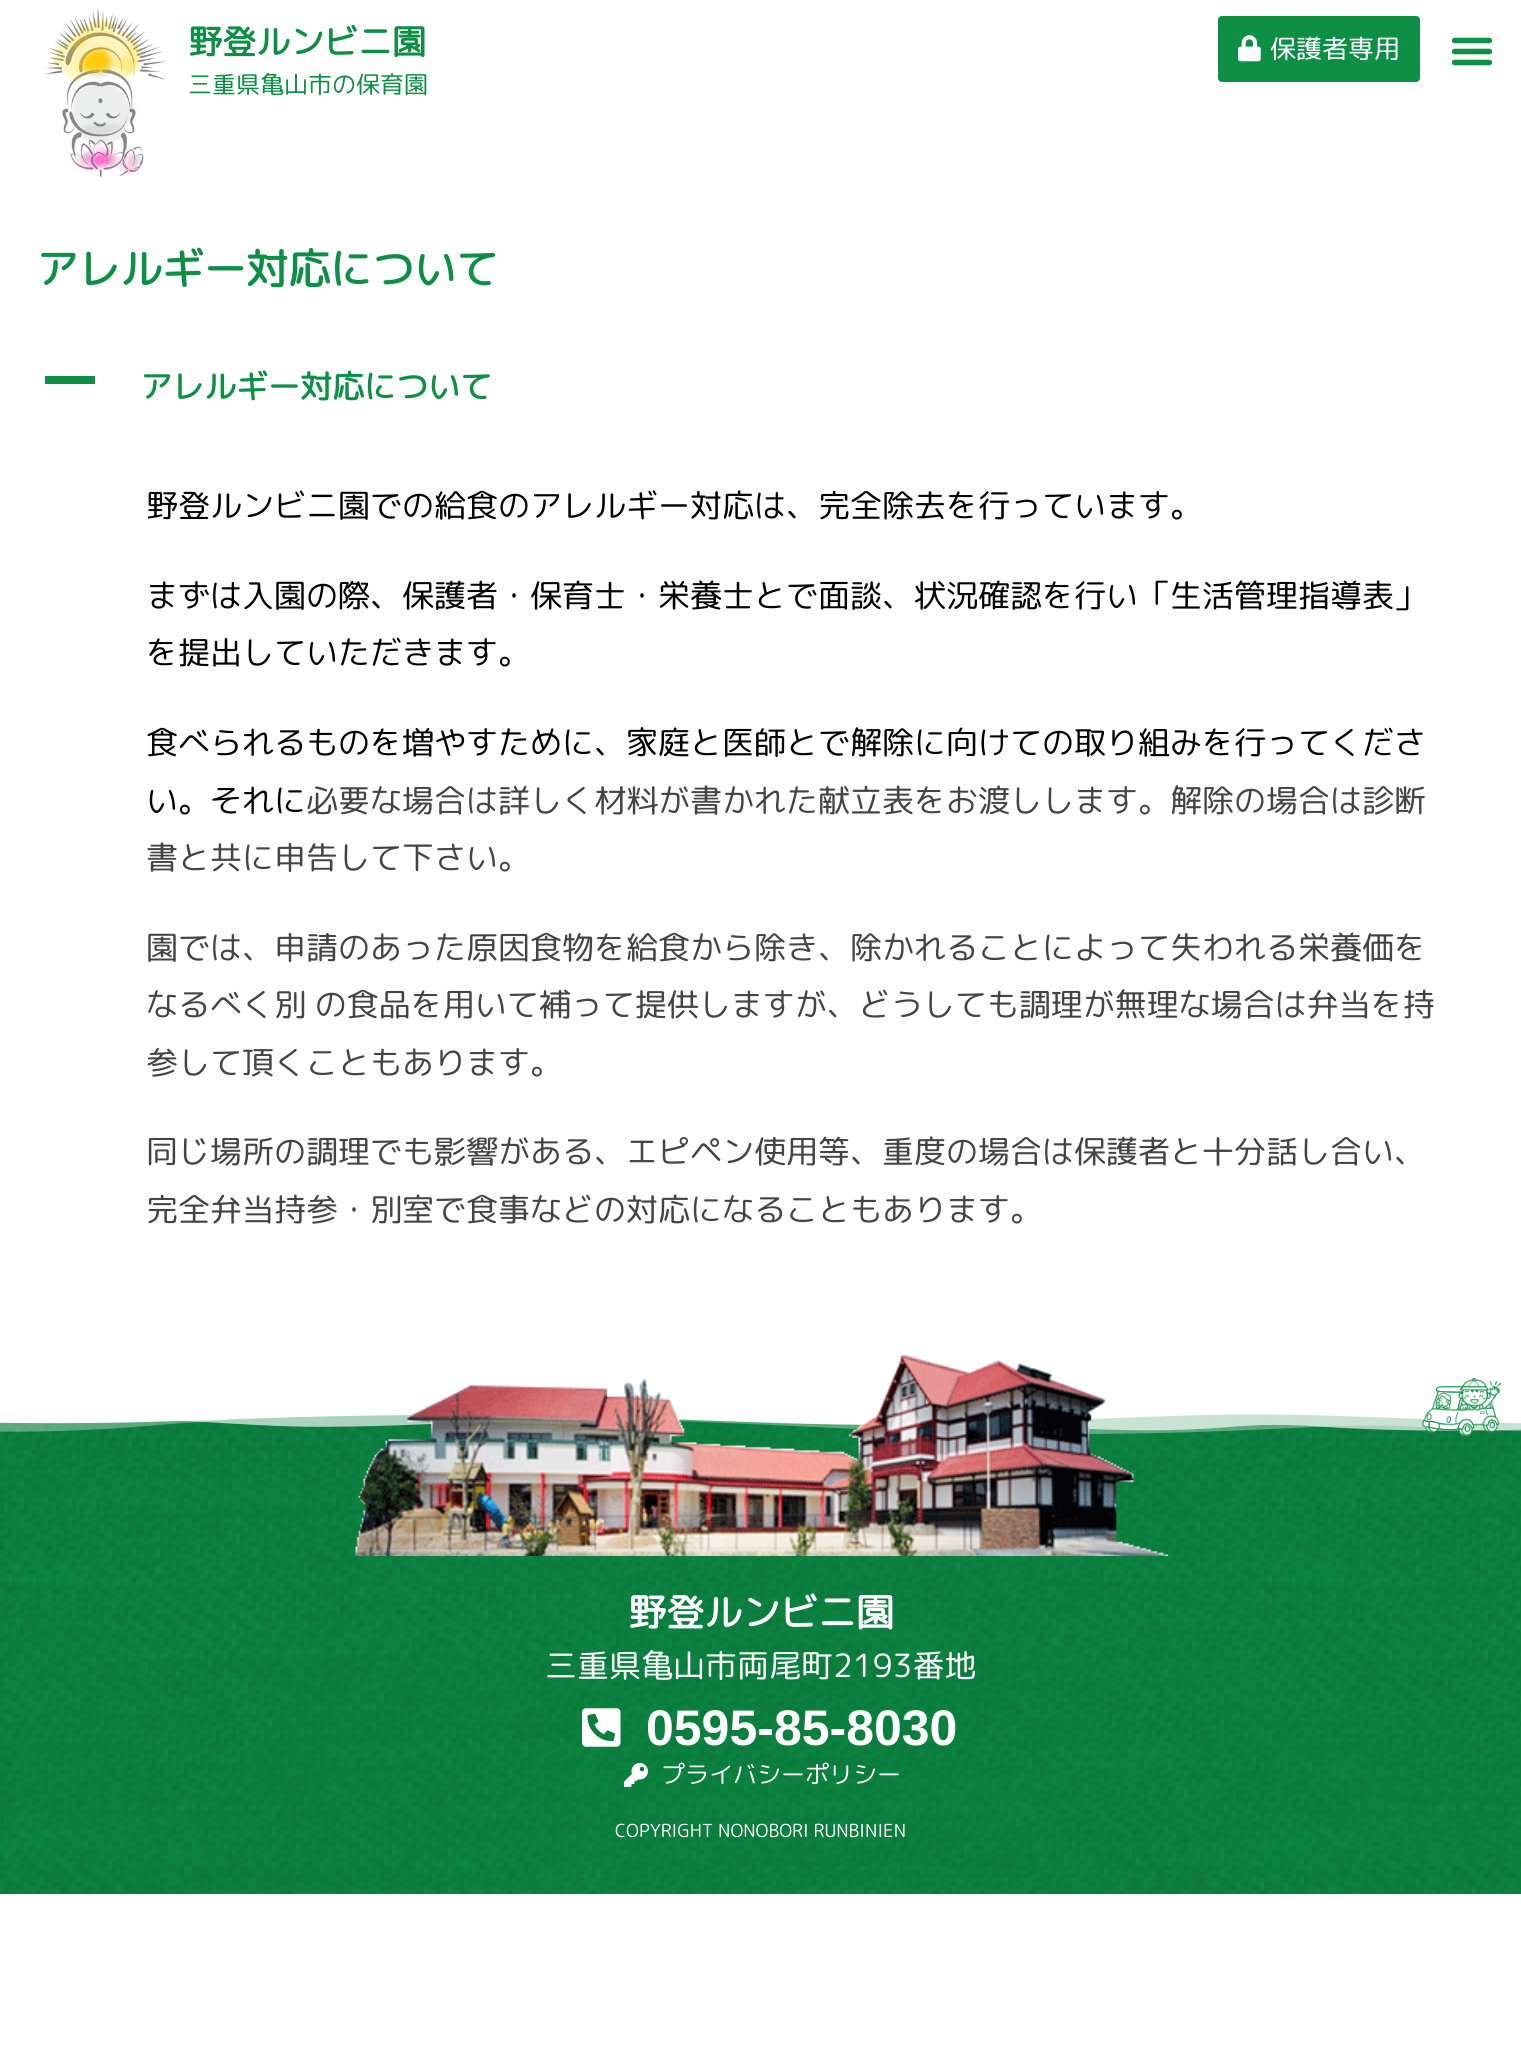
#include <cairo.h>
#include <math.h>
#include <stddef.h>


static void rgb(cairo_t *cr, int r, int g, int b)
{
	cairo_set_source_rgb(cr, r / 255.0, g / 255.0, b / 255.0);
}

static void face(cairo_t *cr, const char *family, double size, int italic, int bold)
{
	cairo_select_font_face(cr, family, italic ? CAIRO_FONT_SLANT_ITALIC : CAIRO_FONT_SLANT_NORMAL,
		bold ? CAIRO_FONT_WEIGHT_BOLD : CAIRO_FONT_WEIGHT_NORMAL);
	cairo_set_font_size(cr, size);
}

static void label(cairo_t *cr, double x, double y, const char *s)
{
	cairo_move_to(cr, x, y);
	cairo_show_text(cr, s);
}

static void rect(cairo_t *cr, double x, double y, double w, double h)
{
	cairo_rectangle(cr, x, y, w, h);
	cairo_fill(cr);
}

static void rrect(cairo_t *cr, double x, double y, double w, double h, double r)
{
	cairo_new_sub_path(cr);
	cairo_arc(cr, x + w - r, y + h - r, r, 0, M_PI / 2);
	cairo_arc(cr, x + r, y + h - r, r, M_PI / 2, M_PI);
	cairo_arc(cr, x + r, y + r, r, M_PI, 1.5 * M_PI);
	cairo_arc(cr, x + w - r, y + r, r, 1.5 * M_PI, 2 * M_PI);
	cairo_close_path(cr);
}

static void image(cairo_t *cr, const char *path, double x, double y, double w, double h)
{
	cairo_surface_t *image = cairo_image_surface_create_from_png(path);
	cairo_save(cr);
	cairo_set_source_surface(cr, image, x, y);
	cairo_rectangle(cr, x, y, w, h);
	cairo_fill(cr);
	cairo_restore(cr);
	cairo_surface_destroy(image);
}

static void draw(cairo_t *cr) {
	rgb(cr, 255, 255, 255);
	cairo_paint(cr);
	image(cr, "image0.png", 43, 7, 125, 171);
	face(cr, "Rounded Mplus 1c", 34, 0, 1);
	rgb(cr, 13, 143, 70);
	label(cr, 188, 54, "野登ルンビニ園");
	face(cr, "Rounded Mplus 1c", 24, 0, 0);
	label(cr, 188, 93, "三重県亀山市の保育園");
	rrect(cr, 1218, 16, 202, 66, 4);
	cairo_fill(cr);
	image(cr, "image1.png", 1238, 35, 23, 27);
	face(cr, "Rounded Mplus 1c", 26, 0, 0);
	rgb(cr, 255, 255, 255);
	label(cr, 1270, 58, "保護者専用");
	image(cr, "image2.png", 1451, 37, 42, 29);
	face(cr, "Rounded Mplus 1c", 42, 0, 1);
	rgb(cr, 13, 143, 70);
	label(cr, 36, 284, "アレルギー対応について");
	rect(cr, 45, 376, 50, 8);
	face(cr, "Rounded Mplus 1c", 32, 0, 1);
	label(cr, 140, 398, "アレルギー対応について");
	face(cr, "Rounded Mplus 1c", 32, 0, 0);
	rgb(cr, 0, 0, 0);
	label(cr, 146, 517, "野登ルンビニ園での給食のアレルギー対応は、完全除去を行っています。");
	label(cr, 146, 607, "まずは入園の際、保護者・保育士・栄養士とで面談、状況確認を行い「生活管理指導表」");
	label(cr, 146, 664, "を提出していただきます。");
	label(cr, 146, 754, "食べられるものを増やすために、家庭と医師とで解除に向けての取り組みを行ってくださ");
	label(cr, 146, 812, "い。それに");
	rgb(cr, 68, 68, 68);
	label(cr, 306, 812, "必要な場合は詳しく材料が書かれた献立表をお渡しします。解除の場合は診断");
	label(cr, 146, 869, "書と共に申告して下さい。");
	label(cr, 146, 959, "園では、申請のあった原因食物を給食から除き、除かれることによって失われる栄養価を");
	label(cr, 146, 1016, "なるべく別 の食品を用いて補って提供しますが、どうしても調理が無理な場合は弁当を持");
	label(cr, 146, 1074, "参して頂くこともあります。");
	label(cr, 146, 1163, "同じ場所の調理でも影響がある、エピペン使用等、重度の場合は保護者と十分話し合い、");
	label(cr, 146, 1221, "完全弁当持参・別室で食事などの対応になることもあります。");
	image(cr, "image3.png", 0, 1414, 1521, 480);
	image(cr, "image4.png", 0, 1414, 1521, 20);
	image(cr, "image5.png", 355, 1355, 813, 201);
	image(cr, "image6.png", 1422, 1378, 80, 58);
	face(cr, "Rounded Mplus 1c", 38, 0, 1);
	rgb(cr, 255, 255, 255);
	label(cr, 628, 1626, "野登ルンビニ園");
	face(cr, "Rounded Mplus 1c", 32, 0, 0);
	label(cr, 545, 1677, "三重県亀山市両尾町2193番地");
	image(cr, "image7.png", 582, 1708, 39, 39);
	face(cr, "Liberation Sans", 50, 0, 1);
	label(cr, 646, 1745, "0595-85-8030");
	image(cr, "image8.png", 624, 1763, 24, 24);
	face(cr, "Rounded Mplus 1c", 24, 0, 0);
	label(cr, 661, 1783, "プライバシーポリシー");
	face(cr, "Rounded Mplus 1c", 18, 0, 0);
	label(cr, 615, 1837, "COPYRIGHT NONOBORI RUNBINIEN");
}

int main(void) {
	cairo_surface_t *surface = cairo_image_surface_create(CAIRO_FORMAT_RGB24, 1521, 2062);
	cairo_t *cr = cairo_create(surface);
	cairo_font_options_t *options = cairo_font_options_create();
	cairo_font_options_set_hint_metrics(options, CAIRO_HINT_METRICS_OFF);
	cairo_font_options_set_hint_style(options, CAIRO_HINT_STYLE_NONE);
	cairo_set_font_options(cr, options);
	cairo_set_miter_limit(cr, 4);
	draw(cr);
	cairo_surface_write_to_png(surface, "render.png");
	cairo_font_options_destroy(options);
	cairo_destroy(cr);
	cairo_surface_destroy(surface);
	return 0;
}
